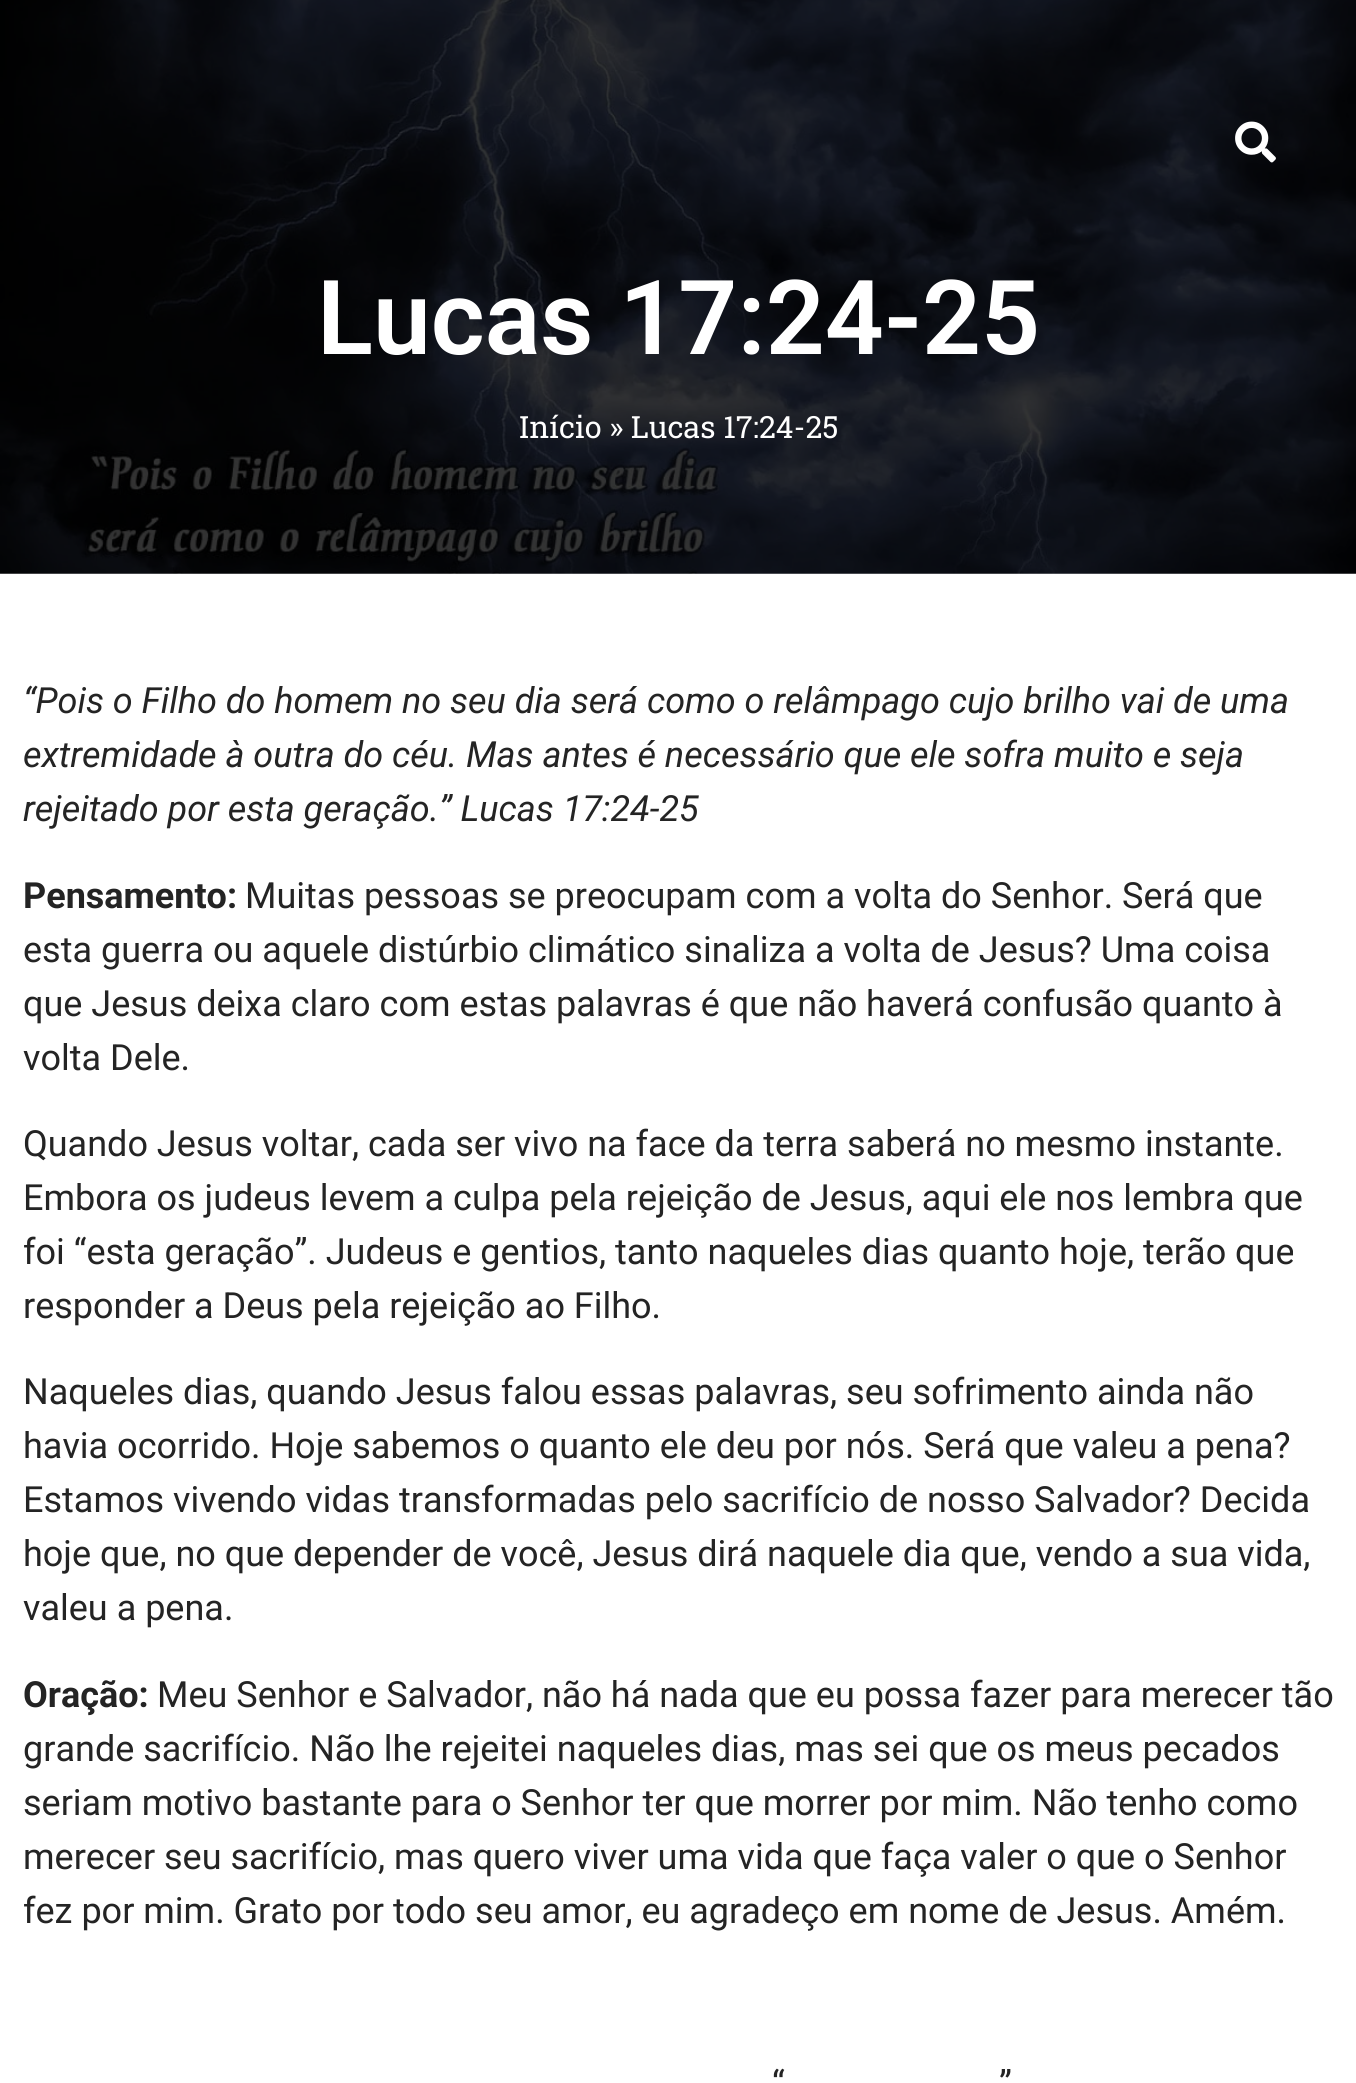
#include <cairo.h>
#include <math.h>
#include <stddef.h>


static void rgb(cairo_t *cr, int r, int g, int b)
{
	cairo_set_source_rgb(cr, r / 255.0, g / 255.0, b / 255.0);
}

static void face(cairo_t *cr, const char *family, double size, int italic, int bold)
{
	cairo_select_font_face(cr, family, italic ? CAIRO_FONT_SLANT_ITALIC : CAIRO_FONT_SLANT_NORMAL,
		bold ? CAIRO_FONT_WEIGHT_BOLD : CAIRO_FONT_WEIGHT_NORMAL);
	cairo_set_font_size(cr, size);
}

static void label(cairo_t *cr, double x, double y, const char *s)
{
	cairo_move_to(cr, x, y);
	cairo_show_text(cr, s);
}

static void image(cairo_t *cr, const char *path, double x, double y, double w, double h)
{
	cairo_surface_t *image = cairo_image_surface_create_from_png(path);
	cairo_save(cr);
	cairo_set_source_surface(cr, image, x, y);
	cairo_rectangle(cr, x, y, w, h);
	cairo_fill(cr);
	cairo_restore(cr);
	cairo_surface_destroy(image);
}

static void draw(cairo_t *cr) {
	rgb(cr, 255, 255, 255);
	cairo_paint(cr);
	image(cr, "image0.png", 0, 0, 1356, 574);
	image(cr, "image1.png", 1235, 121, 41, 42);
	face(cr, "Roboto SemiBold", 103.5, 0, 0);
	rgb(cr, 255, 255, 255);
	label(cr, 317, 354, "Lucas 17:24-25");
	face(cr, "Roboto Slab", 30.6, 0, 0);
	label(cr, 519, 438, "Início » Lucas 17:24-25");
	face(cr, "Roboto", 36, 1, 0);
	rgb(cr, 36, 36, 36);
	label(cr, 23, 713, "“Pois o Filho do homem no seu dia será como o relâmpago cujo brilho vai de uma");
	label(cr, 23, 767, "extremidade à outra do céu. Mas antes é necessário que ele sofra muito e seja");
	label(cr, 23, 821, "rejeitado por esta geração.” Lucas 17:24-25");
	face(cr, "Roboto", 36, 0, 1);
	label(cr, 23, 908, "Pensamento:");
	face(cr, "Roboto", 36, 0, 0);
	label(cr, 245, 908, "Muitas pessoas se preocupam com a volta do Senhor. Será que");
	label(cr, 23, 962, "esta guerra ou aquele distúrbio climático sinaliza a volta de Jesus? Uma coisa");
	label(cr, 23, 1016, "que Jesus deixa claro com estas palavras é que não haverá confusão quanto à");
	label(cr, 23, 1070, "volta Dele.");
	label(cr, 23, 1156, "Quando Jesus voltar, cada ser vivo na face da terra saberá no mesmo instante.");
	label(cr, 23, 1210, "Embora os judeus levem a culpa pela rejeição de Jesus, aqui ele nos lembra que");
	label(cr, 23, 1264, "foi “esta geração”. Judeus e gentios, tanto naqueles dias quanto hoje, terão que");
	label(cr, 23, 1318, "responder a Deus pela rejeição ao Filho.");
	label(cr, 23, 1404, "Naqueles dias, quando Jesus falou essas palavras, seu sofrimento ainda não");
	label(cr, 23, 1458, "havia ocorrido. Hoje sabemos o quanto ele deu por nós. Será que valeu a pena?");
	label(cr, 23, 1512, "Estamos vivendo vidas transformadas pelo sacrifício de nosso Salvador? Decida");
	label(cr, 23, 1566, "hoje que, no que depender de você, Jesus dirá naquele dia que, vendo a sua vida,");
	label(cr, 23, 1620, "valeu a pena.");
	face(cr, "Roboto", 36, 0, 1);
	label(cr, 23, 1707, "Oração:");
	face(cr, "Roboto", 36, 0, 0);
	label(cr, 157, 1707, "Meu Senhor e Salvador, não há nada que eu possa fazer para merecer tão");
	label(cr, 23, 1761, "grande sacrifício. Não lhe rejeitei naqueles dias, mas sei que os meus pecados");
	label(cr, 23, 1815, "seriam motivo bastante para o Senhor ter que morrer por mim. Não tenho como");
	label(cr, 23, 1869, "merecer seu sacrifício, mas quero viver uma vida que faça valer o que o Senhor");
	label(cr, 23, 1923, "fez por mim. Grato por todo seu amor, eu agradeço em nome de Jesus. Amém.");
	label(cr, 772, 2096, "“");
	label(cr, 999, 2096, "”");
}

int main(void) {
	cairo_surface_t *surface = cairo_image_surface_create(CAIRO_FORMAT_RGB24, 1356, 2083);
	cairo_t *cr = cairo_create(surface);
	cairo_font_options_t *options = cairo_font_options_create();
	cairo_font_options_set_hint_metrics(options, CAIRO_HINT_METRICS_OFF);
	cairo_font_options_set_hint_style(options, CAIRO_HINT_STYLE_NONE);
	cairo_set_font_options(cr, options);
	cairo_set_miter_limit(cr, 4);
	draw(cr);
	cairo_surface_write_to_png(surface, "render.png");
	cairo_font_options_destroy(options);
	cairo_destroy(cr);
	cairo_surface_destroy(surface);
	return 0;
}
